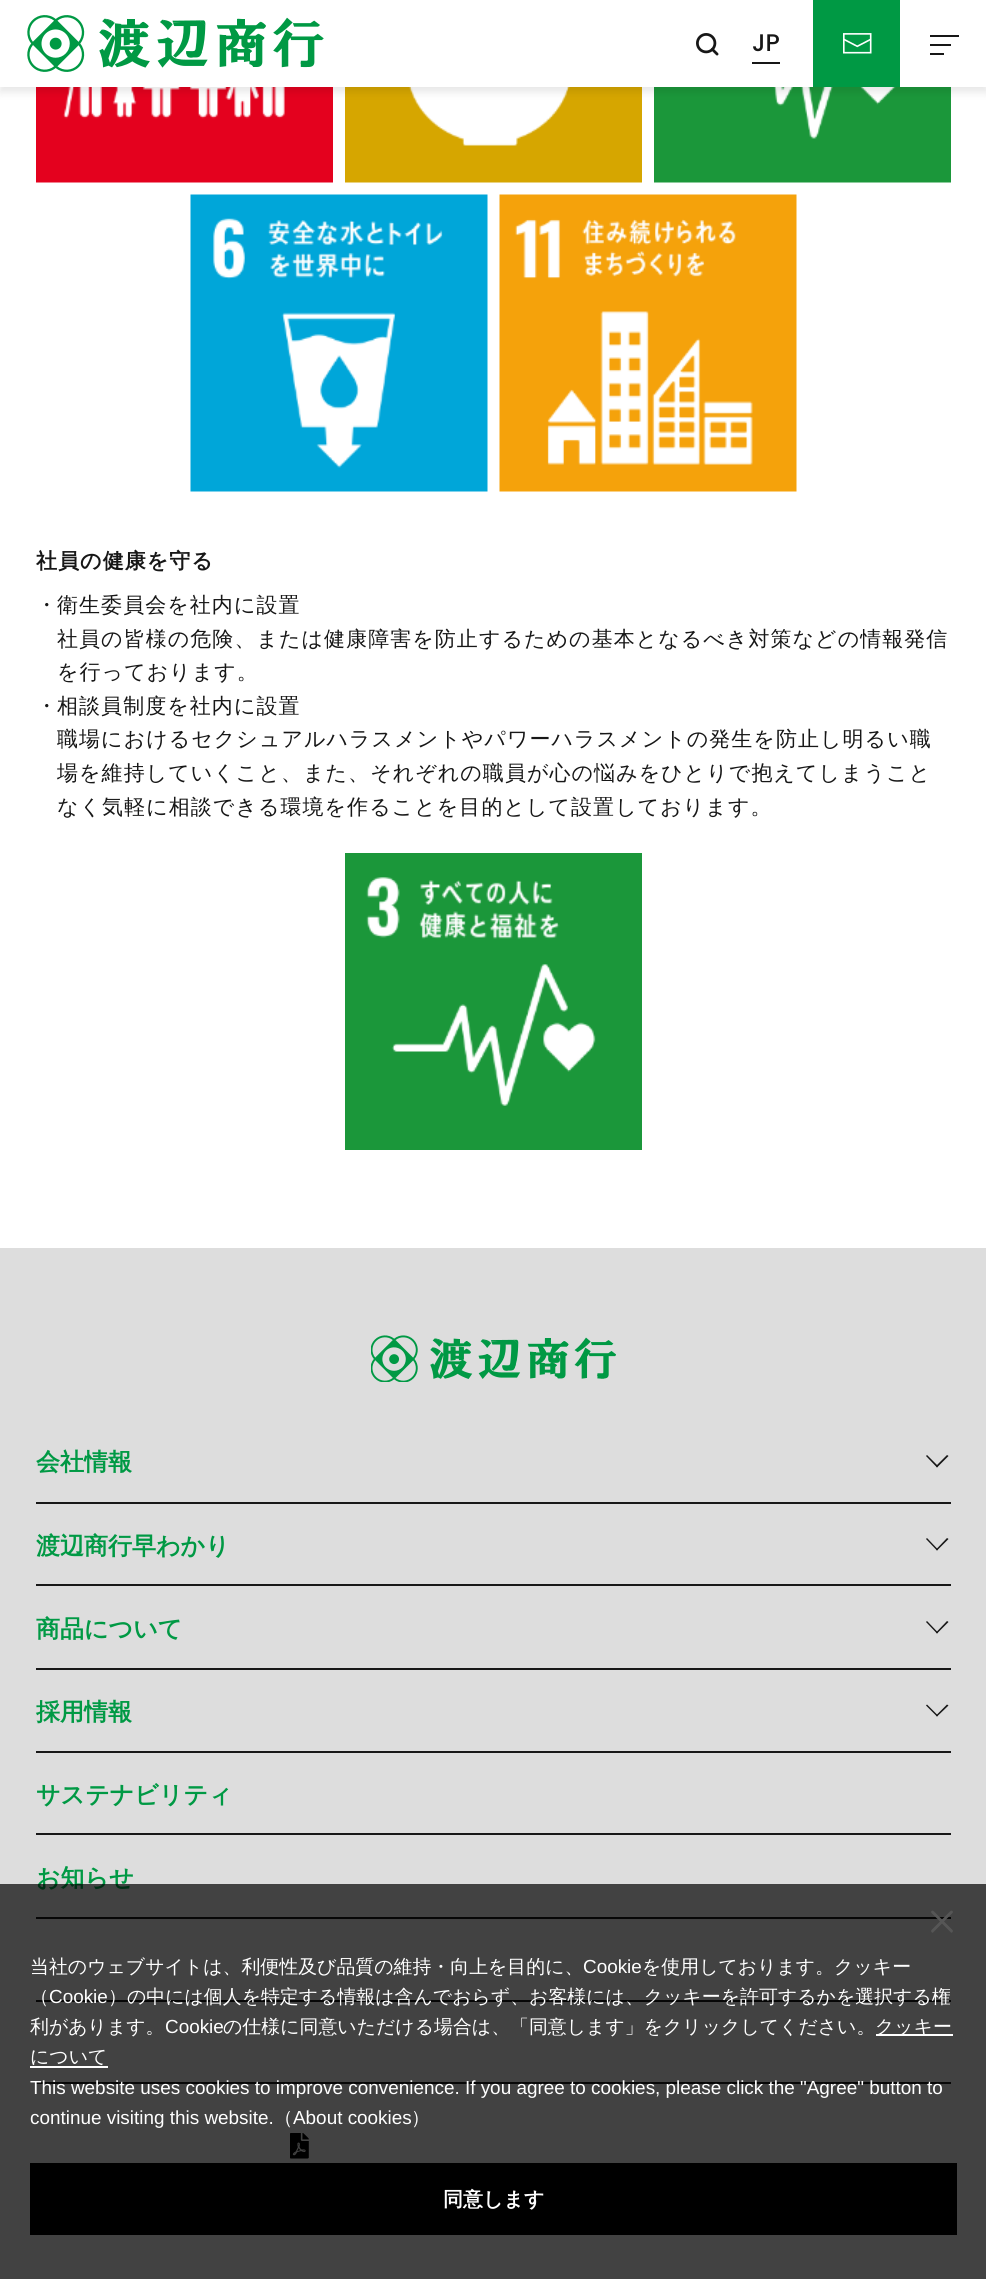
#include <cairo.h>
#include <math.h>
#include <stddef.h>


static void rgb(cairo_t *cr, int r, int g, int b)
{
	cairo_set_source_rgb(cr, r / 255.0, g / 255.0, b / 255.0);
}

static void face(cairo_t *cr, const char *family, double size, int italic, int bold)
{
	cairo_select_font_face(cr, family, italic ? CAIRO_FONT_SLANT_ITALIC : CAIRO_FONT_SLANT_NORMAL,
		bold ? CAIRO_FONT_WEIGHT_BOLD : CAIRO_FONT_WEIGHT_NORMAL);
	cairo_set_font_size(cr, size);
}

static void label(cairo_t *cr, double x, double y, const char *s)
{
	cairo_move_to(cr, x, y);
	cairo_show_text(cr, s);
}

static void tracked(cairo_t *cr, double x, double y, const char *s, double letter, double word)
{
	cairo_move_to(cr, x, y);
	while (*s) {
		char ch[5] = {0};
		int n = 0;
		do ch[n++] = *s++; while ((*s & 0xC0) == 0x80);
		cairo_show_text(cr, ch);
		cairo_rel_move_to(cr, letter + word * (*ch == ' '), 0);
	}
}

static void rect(cairo_t *cr, double x, double y, double w, double h)
{
	cairo_rectangle(cr, x, y, w, h);
	cairo_fill(cr);
}

static void rrect(cairo_t *cr, double x, double y, double w, double h, double r)
{
	cairo_new_sub_path(cr);
	cairo_arc(cr, x + w - r, y + h - r, r, 0, M_PI / 2);
	cairo_arc(cr, x + r, y + h - r, r, M_PI / 2, M_PI);
	cairo_arc(cr, x + r, y + r, r, M_PI, 1.5 * M_PI);
	cairo_arc(cr, x + w - r, y + r, r, 1.5 * M_PI, 2 * M_PI);
	cairo_close_path(cr);
}

static void soft_shadow(cairo_t *cr, double x, double y, double w, double h, double r, double blur, double alpha)
{
	cairo_push_group_with_content(cr, CAIRO_CONTENT_ALPHA);
	cairo_set_operator(cr, CAIRO_OPERATOR_SOURCE);
	for (int i = 15; i >= -15 && fmin(w, h) + blur * i / 3 > 0; i -= 2) {
		double e = blur * i / 6;
		cairo_set_source_rgba(cr, 0, 0, 0, alpha * erfc((i - 1) / 8.5) / 2);
		rrect(cr, x - e, y - e, w + 2 * e, h + 2 * e, fmax(0, fmin(r + e + blur * .6, fmin(w, h) / 2 + e)));
		cairo_fill(cr);
	}
	cairo_pattern_t *soft = cairo_pop_group(cr);
	cairo_mask(cr, soft);
	cairo_pattern_destroy(soft);
}

static void image(cairo_t *cr, const char *path, double x, double y, double w, double h)
{
	cairo_surface_t *image = cairo_image_surface_create_from_png(path);
	cairo_save(cr);
	cairo_set_source_surface(cr, image, x, y);
	cairo_rectangle(cr, x, y, w, h);
	cairo_fill(cr);
	cairo_restore(cr);
	cairo_surface_destroy(image);
}

static void draw(cairo_t *cr) {
	rgb(cr, 255, 255, 255);
	cairo_paint(cr);
	image(cr, "image3.png", 36, 87, 297, 96);
	image(cr, "image4.png", 345, 87, 297, 96);
	image(cr, "image5.png", 654, 87, 297, 96);
	rgb(cr, 0, 0, 0);
	soft_shadow(cr, 0, 5, 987, 87, 0, 4.5, 0.1);
	rgb(cr, 255, 255, 255);
	rect(cr, 0, 0, 986, 87);
	image(cr, "image0.png", 27, 15, 297, 57);
	image(cr, "image1.png", 696, 33, 23, 23);
	rgb(cr, 23, 23, 23);
	rect(cr, 752, 62, 28, 2);
	face(cr, "Poppins Medium", 24, 0, 0);
	label(cr, 752, 51, "JP");
	rgb(cr, 0, 153, 68);
	rect(cr, 813, 0, 87, 87);
	image(cr, "image2.png", 843, 33, 29, 21);
	rgb(cr, 23, 23, 23);
	rect(cr, 930, 35, 29, 2);
	rect(cr, 930, 44, 21, 2);
	rect(cr, 930, 53, 14, 2);
	image(cr, "image6.png", 190, 194, 298, 298);
	image(cr, "image7.png", 499, 194, 298, 298);
	face(cr, "WenQuanYi Zen Hei", 21, 0, 1);
	tracked(cr, 36, 568, "社員の健康を守る", 1.05, 0);
	face(cr, "WenQuanYi Zen Hei Medium", 21, 0, 0);
	tracked(cr, 36, 612, "・", 1.05, 0);
	tracked(cr, 57, 612, "衛生委員会を社内に設置", 1.05, 0);
	tracked(cr, 57, 646, "社員の皆様の危険、または健康障害を防止するための基本となるべき対策などの情報発信", 1.05, 0);
	tracked(cr, 57, 679, "を行っております。", 1.05, 0);
	tracked(cr, 36, 713, "・", 1.05, 0);
	tracked(cr, 57, 713, "相談員制度を社内に設置", 1.05, 0);
	tracked(cr, 57, 746, "職場におけるセクシュアルハラスメントやパワーハラスメントの発生を防止し明るい職", 1.05, 0);
	tracked(cr, 57, 780, "場を維持していくこと、また、それぞれの職員が心の悩みをひとりで抱えてしまうこと", 1.05, 0);
	tracked(cr, 57, 814, "なく気軽に相談できる環境を作ることを目的として設置しております。", 1.05, 0);
	image(cr, "image8.png", 345, 853, 297, 297);
	rgb(cr, 221, 221, 221);
	rect(cr, 0, 1248, 986, 1031);
	image(cr, "image9.png", 371, 1335, 245, 47);
	rgb(cr, 23, 23, 23);
	rect(cr, 36, 1502, 915, 2);
	face(cr, "WenQuanYi Zen Hei", 24, 0, 1);
	rgb(cr, 0, 153, 68);
	label(cr, 36, 1470, "会社情報");
	rgb(cr, 23, 23, 23);
	cairo_new_path(cr);
	cairo_move_to(cr, 947, 1455);
	cairo_line_to(cr, 948.5, 1456);
	cairo_line_to(cr, 937, 1467.5);
	cairo_line_to(cr, 936, 1466);
	cairo_close_path(cr);
	cairo_fill(cr);
	cairo_new_path(cr);
	cairo_move_to(cr, 927, 1455);
	cairo_line_to(cr, 938, 1466);
	cairo_line_to(cr, 937, 1467.5);
	cairo_line_to(cr, 926, 1456);
	cairo_close_path(cr);
	cairo_fill(cr);
	rect(cr, 36, 1584, 915, 2);
	rgb(cr, 0, 153, 68);
	label(cr, 36, 1554, "渡辺商行早わかり");
	rgb(cr, 23, 23, 23);
	cairo_new_path(cr);
	cairo_move_to(cr, 947, 1538);
	cairo_line_to(cr, 948.5, 1539);
	cairo_line_to(cr, 937, 1550.5);
	cairo_line_to(cr, 936, 1549.5);
	cairo_close_path(cr);
	cairo_fill(cr);
	cairo_new_path(cr);
	cairo_move_to(cr, 927, 1538);
	cairo_line_to(cr, 938, 1549.5);
	cairo_line_to(cr, 937, 1550.5);
	cairo_line_to(cr, 926, 1539);
	cairo_close_path(cr);
	cairo_fill(cr);
	rect(cr, 36, 1668, 915, 2);
	rgb(cr, 0, 153, 68);
	label(cr, 36, 1637, "商品について");
	rgb(cr, 23, 23, 23);
	cairo_new_path(cr);
	cairo_move_to(cr, 947, 1621);
	cairo_line_to(cr, 948.5, 1622);
	cairo_line_to(cr, 937, 1633.5);
	cairo_line_to(cr, 936, 1632.5);
	cairo_close_path(cr);
	cairo_fill(cr);
	cairo_new_path(cr);
	cairo_move_to(cr, 927, 1621);
	cairo_line_to(cr, 938, 1632.5);
	cairo_line_to(cr, 937, 1633.5);
	cairo_line_to(cr, 926, 1622);
	cairo_close_path(cr);
	cairo_fill(cr);
	rect(cr, 36, 1751, 915, 2);
	rgb(cr, 0, 153, 68);
	label(cr, 36, 1720, "採用情報");
	rgb(cr, 23, 23, 23);
	cairo_new_path(cr);
	cairo_move_to(cr, 947, 1704.5);
	cairo_line_to(cr, 948.5, 1705.5);
	cairo_line_to(cr, 937, 1716.5);
	cairo_line_to(cr, 936, 1715.5);
	cairo_close_path(cr);
	cairo_fill(cr);
	cairo_new_path(cr);
	cairo_move_to(cr, 927, 1704.5);
	cairo_line_to(cr, 938, 1715.5);
	cairo_line_to(cr, 937, 1716.5);
	cairo_line_to(cr, 926, 1705.5);
	cairo_close_path(cr);
	cairo_fill(cr);
	rect(cr, 36, 1833, 915, 2);
	rgb(cr, 0, 153, 68);
	label(cr, 36, 1803, "サステナビリティ");
	rgb(cr, 23, 23, 23);
	rect(cr, 36, 1917, 915, 2);
	rgb(cr, 0, 153, 68);
	label(cr, 36, 1886, "お知らせ");
	rgb(cr, 23, 23, 23);
	rect(cr, 36, 2000, 915, 2);
	rect(cr, 36, 2082, 915, 2);
	image(cr, "image10.png", 290, 2133, 19, 26);
	cairo_set_source_rgba(cr, 0, 0, 0, 0.7);
	rect(cr, 0, 1884, 986, 395);
	rgb(cr, 86, 86, 86);
	cairo_new_path(cr);
	cairo_move_to(cr, 952.5, 1911);
	cairo_curve_to(cr, 953, 1911.5, 953, 1912.5, 952.5, 1913);
	cairo_line_to(cr, 933.5, 1932);
	cairo_curve_to(cr, 933, 1933, 932, 1933, 931.5, 1932);
	cairo_curve_to(cr, 931, 1931.5, 931, 1930.5, 931.5, 1930);
	cairo_line_to(cr, 950.5, 1911);
	cairo_curve_to(cr, 951, 1910.5, 952, 1910.5, 952.5, 1911);
	cairo_close_path(cr);
	cairo_fill(cr);
	cairo_new_path(cr);
	cairo_move_to(cr, 931.5, 1911);
	cairo_curve_to(cr, 932, 1910.5, 933, 1910.5, 933.5, 1911);
	cairo_line_to(cr, 952.5, 1930);
	cairo_curve_to(cr, 953, 1930.5, 953, 1931.5, 952.5, 1932);
	cairo_curve_to(cr, 952, 1933, 951, 1933, 950.5, 1932);
	cairo_line_to(cr, 931.5, 1913);
	cairo_curve_to(cr, 931, 1912.5, 931, 1911.5, 931.5, 1911);
	cairo_close_path(cr);
	cairo_fill(cr);
	face(cr, "WenQuanYi Zen Hei Medium", 18.9, 0, 0);
	rgb(cr, 255, 255, 255);
	label(cr, 30, 1973, "当社のウェブサイトは、利便性及び品質の維持・向上を目的に、");
	face(cr, "Liberation Sans", 18.9, 0, 0);
	label(cr, 583, 1973, "Cookie");
	face(cr, "WenQuanYi Zen Hei Medium", 18.9, 0, 0);
	label(cr, 642, 1973, "を使用しております。クッキー");
	label(cr, 30, 2003, "（");
	face(cr, "Liberation Sans", 18.9, 0, 0);
	label(cr, 49, 2003, "Cookie");
	face(cr, "WenQuanYi Zen Hei Medium", 18.9, 0, 0);
	label(cr, 108, 2003, "）の中には個人を特定する情報は含んでおらず、お客様には、クッキーを許可するかを選択する権");
	label(cr, 30, 2033, "利があります。");
	face(cr, "Liberation Sans", 18.9, 0, 0);
	label(cr, 165, 2033, "Cookie");
	face(cr, "WenQuanYi Zen Hei Medium", 18.9, 0, 0);
	label(cr, 223, 2033, "の仕様に同意いただける場合は、「同意します」をクリックしてください。");
	rect(cr, 876, 2034, 77, 2);
	label(cr, 875, 2033, "クッキー");
	label(cr, 30, 2063, "について");
	rect(cr, 30, 2066, 78, 2);
	face(cr, "Liberation Sans", 18.9, 0, 0);
	label(cr, 30, 2094, "This website uses cookies to improve convenience. If you agree to cookies, please click the \"Agree\" button to");
	label(cr, 30, 2124, "continue visiting this website.");
	face(cr, "WenQuanYi Zen Hei Medium", 18.9, 0, 0);
	label(cr, 274, 2124, "（");
	face(cr, "Liberation Sans", 18.9, 0, 0);
	label(cr, 293, 2124, "About cookies");
	face(cr, "WenQuanYi Zen Hei Medium", 18.9, 0, 0);
	label(cr, 411, 2124, "）");
	rgb(cr, 0, 0, 0);
	rect(cr, 30, 2163, 927, 72);
	face(cr, "WenQuanYi Zen Hei", 20, 0, 1);
	rgb(cr, 255, 255, 255);
	label(cr, 443, 2206, "同意します");
}

int main(void) {
	cairo_surface_t *surface = cairo_image_surface_create(CAIRO_FORMAT_RGB24, 986, 2279);
	cairo_t *cr = cairo_create(surface);
	cairo_font_options_t *options = cairo_font_options_create();
	cairo_font_options_set_hint_metrics(options, CAIRO_HINT_METRICS_OFF);
	cairo_font_options_set_hint_style(options, CAIRO_HINT_STYLE_NONE);
	cairo_set_font_options(cr, options);
	cairo_set_miter_limit(cr, 4);
	draw(cr);
	cairo_surface_write_to_png(surface, "render.png");
	cairo_font_options_destroy(options);
	cairo_destroy(cr);
	cairo_surface_destroy(surface);
	return 0;
}
